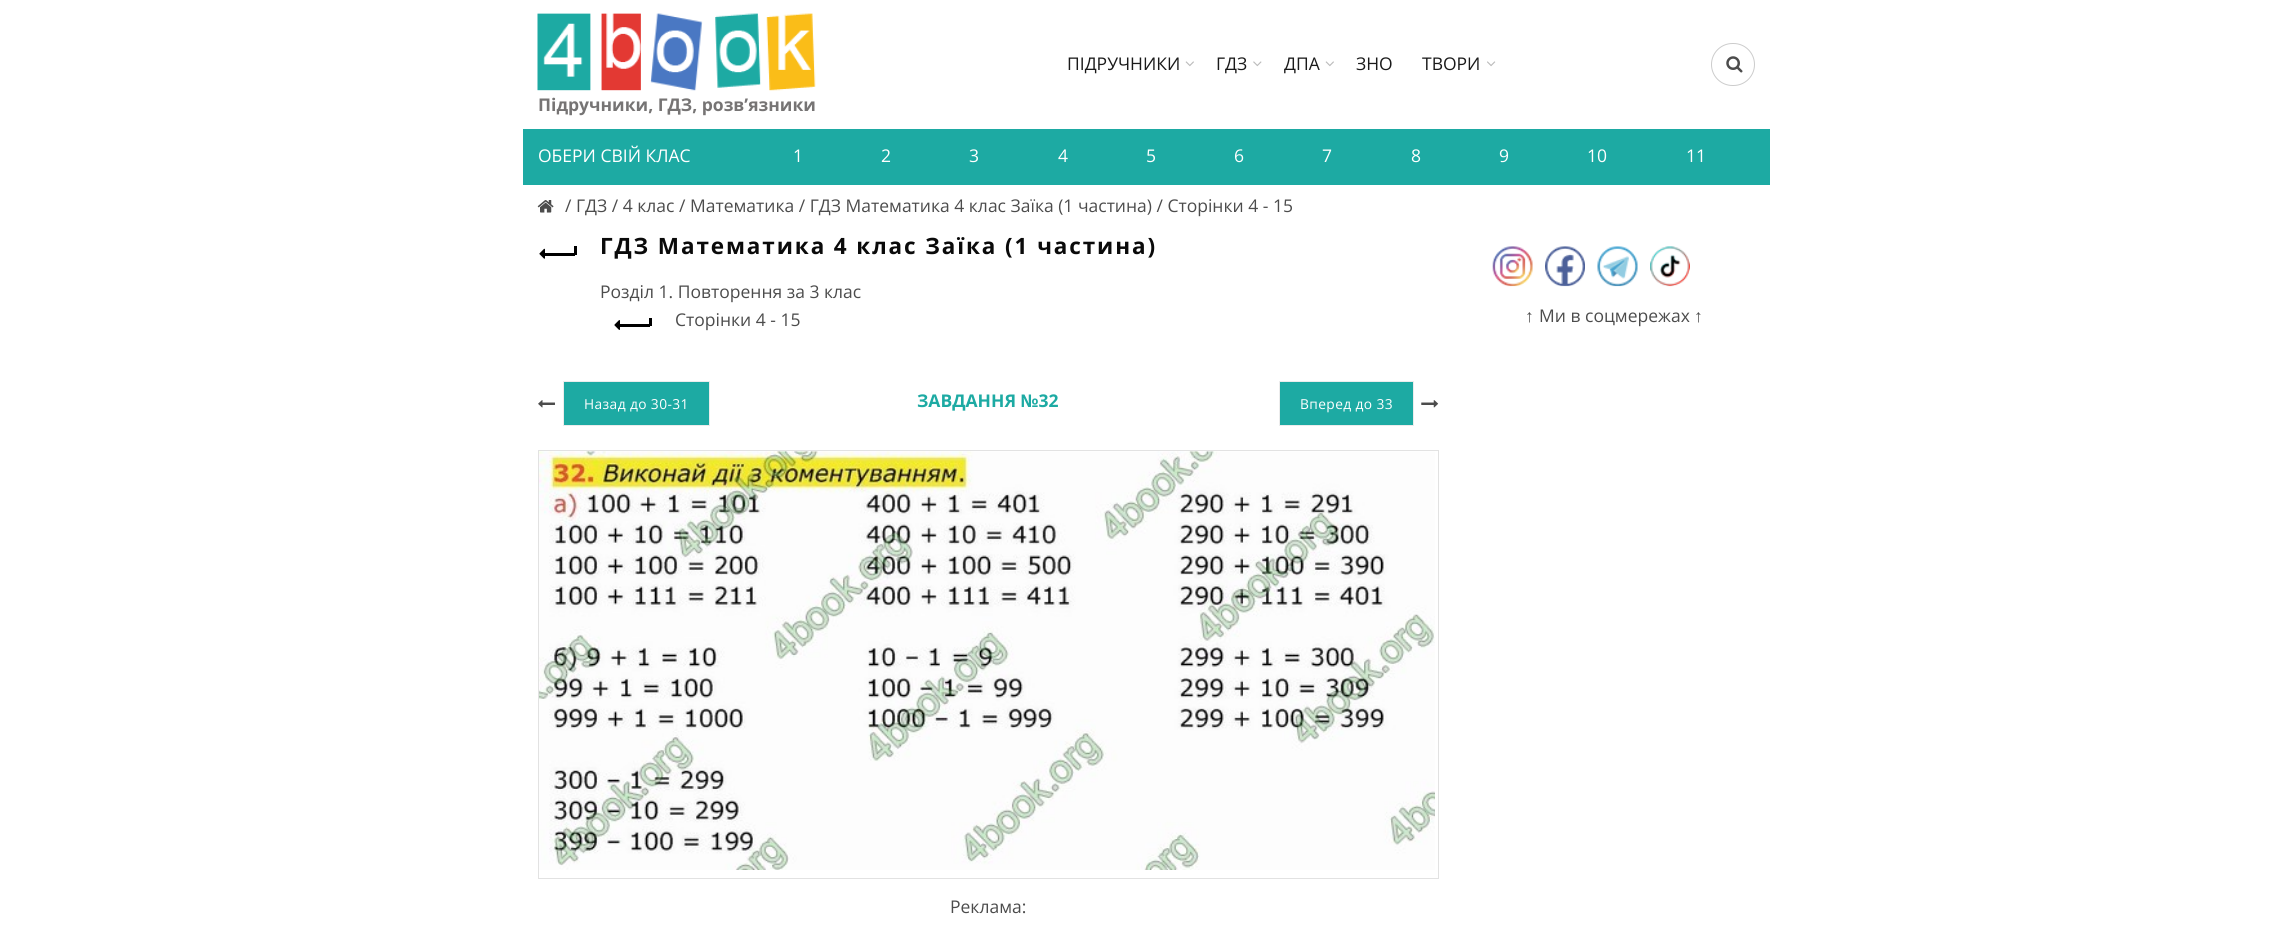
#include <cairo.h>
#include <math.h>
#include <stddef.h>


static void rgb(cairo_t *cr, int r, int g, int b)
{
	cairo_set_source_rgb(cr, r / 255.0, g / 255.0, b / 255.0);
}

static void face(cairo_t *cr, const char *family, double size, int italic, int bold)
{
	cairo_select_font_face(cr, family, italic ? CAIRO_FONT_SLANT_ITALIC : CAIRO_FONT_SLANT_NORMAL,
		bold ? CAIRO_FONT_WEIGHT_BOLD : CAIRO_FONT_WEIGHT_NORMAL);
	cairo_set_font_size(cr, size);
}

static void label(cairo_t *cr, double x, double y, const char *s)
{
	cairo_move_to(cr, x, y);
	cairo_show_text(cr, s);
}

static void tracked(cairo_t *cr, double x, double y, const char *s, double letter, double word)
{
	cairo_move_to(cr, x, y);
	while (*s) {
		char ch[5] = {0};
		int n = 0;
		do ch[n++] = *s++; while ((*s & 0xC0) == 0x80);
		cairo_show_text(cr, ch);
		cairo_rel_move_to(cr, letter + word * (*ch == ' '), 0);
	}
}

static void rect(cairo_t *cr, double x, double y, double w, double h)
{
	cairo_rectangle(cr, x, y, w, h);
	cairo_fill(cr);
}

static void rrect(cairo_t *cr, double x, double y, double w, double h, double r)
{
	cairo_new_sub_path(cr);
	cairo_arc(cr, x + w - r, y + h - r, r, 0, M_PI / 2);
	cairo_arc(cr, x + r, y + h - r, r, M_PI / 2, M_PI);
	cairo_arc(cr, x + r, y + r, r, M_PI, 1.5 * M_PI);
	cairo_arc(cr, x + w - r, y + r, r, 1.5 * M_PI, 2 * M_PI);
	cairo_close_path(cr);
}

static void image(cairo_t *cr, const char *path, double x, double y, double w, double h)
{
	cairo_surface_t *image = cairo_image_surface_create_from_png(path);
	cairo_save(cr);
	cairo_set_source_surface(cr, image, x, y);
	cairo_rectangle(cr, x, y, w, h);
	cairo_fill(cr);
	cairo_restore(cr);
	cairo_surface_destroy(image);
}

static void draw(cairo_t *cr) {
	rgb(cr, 255, 255, 255);
	cairo_paint(cr);
	face(cr, "Open Sans", 17.5, 0, 0);
	rgb(cr, 26, 26, 26);
	label(cr, 1067, 70, "ПІДРУЧНИКИ");
	image(cr, "image0.png", 1185, 61, 9, 6);
	label(cr, 1216, 70, "ГДЗ");
	image(cr, "image1.png", 1253, 61, 9, 6);
	label(cr, 1284, 70, "ДПА");
	image(cr, "image0.png", 1325, 61, 9, 6);
	label(cr, 1356, 70, "ЗНО");
	label(cr, 1422, 70, "ТВОРИ");
	image(cr, "image2.png", 1487, 61, 9, 6);
	image(cr, "image3.png", 1726, 56, 17, 17);
	rrect(cr, 1711.5, 43.5, 43, 42, 21);
	rgb(cr, 204, 204, 204);
	cairo_set_line_width(cr, 1);
	cairo_stroke(cr);
	image(cr, "image4.png", 537, 13, 279, 78);
	face(cr, "Open Sans", 17.5, 0, 1);
	rgb(cr, 118, 116, 116);
	label(cr, 538, 111, "Підручники, ГДЗ, розв’язники");
	rgb(cr, 29, 170, 163);
	rect(cr, 523, 129, 1247, 56);
	face(cr, "Open Sans", 17.5, 0, 0);
	rgb(cr, 255, 255, 255);
	label(cr, 538, 162, "ОБЕРИ СВІЙ КЛАС");
	label(cr, 793, 162, "1");
	label(cr, 881, 162, "2");
	label(cr, 969, 162, "3");
	label(cr, 1058, 162, "4");
	label(cr, 1146, 162, "5");
	label(cr, 1234, 162, "6");
	label(cr, 1322, 162, "7");
	label(cr, 1411, 162, "8");
	label(cr, 1499, 162, "9");
	label(cr, 1587, 162, "10");
	label(cr, 1686, 162, "11");
	image(cr, "image5.png", 537, 200, 17, 13);
	rgb(cr, 76, 76, 76);
	label(cr, 565, 212, "/ ГДЗ / 4 клас / Математика / ГДЗ Математика 4 клас Заїка (1 частина) / Сторінки 4 - 15");
	rgb(cr, 0, 0, 0);
	rect(cr, 544, 253, 31, 3);
	image(cr, "image6.png", 539, 248, 6, 11);
	rect(cr, 574, 246, 3, 9);
	face(cr, "Open Sans", 22.5, 0, 1);
	rgb(cr, 10, 10, 10);
	tracked(cr, 600, 254, "ГДЗ Математика 4 клас Заїка (1 частина)", 1.9, 0);
	face(cr, "Open Sans", 17.5, 0, 0);
	rgb(cr, 76, 76, 76);
	label(cr, 600, 298, "Розділ 1. Повторення за 3 клас");
	rgb(cr, 0, 0, 0);
	rect(cr, 619, 324, 31, 3);
	image(cr, "image7.png", 614, 320, 6, 10);
	rect(cr, 649, 318, 3, 8);
	rgb(cr, 76, 76, 76);
	label(cr, 675, 326, "Сторінки 4 - 15");
	image(cr, "image8.png", 538, 400, 17, 8);
	rgb(cr, 29, 170, 163);
	cairo_rectangle(cr, 563.5, 381.5, 146, 44);
	cairo_fill_preserve(cr);
	rgb(cr, 236, 236, 236);
	cairo_stroke(cr);
	face(cr, "Open Sans", 13.75, 0, 0);
	rgb(cr, 255, 255, 255);
	tracked(cr, 584, 409, "Назад до 30-31", 0.4, 0);
	face(cr, "Open Sans", 17.5, 0, 1);
	rgb(cr, 29, 170, 163);
	label(cr, 917, 407, "ЗАВДАННЯ №32");
	cairo_rectangle(cr, 1279.5, 381.5, 134, 44);
	cairo_fill_preserve(cr);
	rgb(cr, 236, 236, 236);
	cairo_stroke(cr);
	face(cr, "Open Sans", 13.75, 0, 0);
	rgb(cr, 255, 255, 255);
	tracked(cr, 1300, 409, "Вперед до 33", 0.4, 0);
	image(cr, "image9.png", 1421, 400, 18, 8);
	cairo_rectangle(cr, 538.5, 450.5, 900, 428);
	rgb(cr, 226, 226, 226);
	cairo_stroke(cr);
	image(cr, "image10.png", 539, 451, 896, 419);
	face(cr, "Open Sans", 17.5, 0, 0);
	rgb(cr, 76, 76, 76);
	label(cr, 950, 913, "Реклама:");
	image(cr, "image11.png", 1492, 246, 41, 41);
	image(cr, "image12.png", 1545, 246, 40, 41);
	image(cr, "image13.png", 1597, 246, 41, 41);
	image(cr, "image14.png", 1650, 246, 40, 41);
	face(cr, "Liberation Sans", 17.5, 0, 0);
	label(cr, 1525, 322, "↑");
	face(cr, "Open Sans", 17.5, 0, 0);
	label(cr, 1539, 322, "Ми в соцмережах");
	face(cr, "Liberation Sans", 17.5, 0, 0);
	label(cr, 1694, 322, "↑");
}

int main(void) {
	cairo_surface_t *surface = cairo_image_surface_create(CAIRO_FORMAT_RGB24, 2292, 928);
	cairo_t *cr = cairo_create(surface);
	cairo_font_options_t *options = cairo_font_options_create();
	cairo_font_options_set_hint_metrics(options, CAIRO_HINT_METRICS_OFF);
	cairo_font_options_set_hint_style(options, CAIRO_HINT_STYLE_NONE);
	cairo_set_font_options(cr, options);
	cairo_set_miter_limit(cr, 4);
	draw(cr);
	cairo_surface_write_to_png(surface, "render.png");
	cairo_font_options_destroy(options);
	cairo_destroy(cr);
	cairo_surface_destroy(surface);
	return 0;
}
